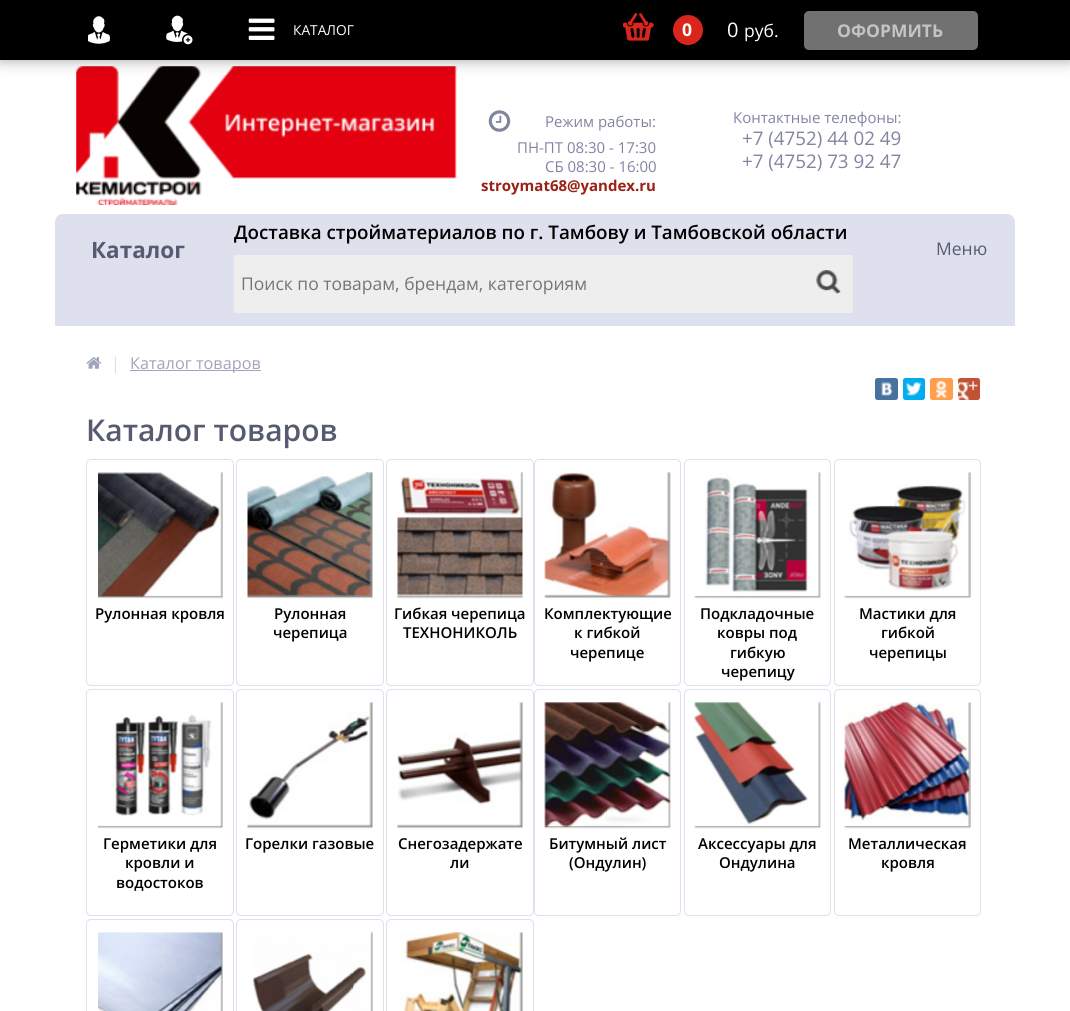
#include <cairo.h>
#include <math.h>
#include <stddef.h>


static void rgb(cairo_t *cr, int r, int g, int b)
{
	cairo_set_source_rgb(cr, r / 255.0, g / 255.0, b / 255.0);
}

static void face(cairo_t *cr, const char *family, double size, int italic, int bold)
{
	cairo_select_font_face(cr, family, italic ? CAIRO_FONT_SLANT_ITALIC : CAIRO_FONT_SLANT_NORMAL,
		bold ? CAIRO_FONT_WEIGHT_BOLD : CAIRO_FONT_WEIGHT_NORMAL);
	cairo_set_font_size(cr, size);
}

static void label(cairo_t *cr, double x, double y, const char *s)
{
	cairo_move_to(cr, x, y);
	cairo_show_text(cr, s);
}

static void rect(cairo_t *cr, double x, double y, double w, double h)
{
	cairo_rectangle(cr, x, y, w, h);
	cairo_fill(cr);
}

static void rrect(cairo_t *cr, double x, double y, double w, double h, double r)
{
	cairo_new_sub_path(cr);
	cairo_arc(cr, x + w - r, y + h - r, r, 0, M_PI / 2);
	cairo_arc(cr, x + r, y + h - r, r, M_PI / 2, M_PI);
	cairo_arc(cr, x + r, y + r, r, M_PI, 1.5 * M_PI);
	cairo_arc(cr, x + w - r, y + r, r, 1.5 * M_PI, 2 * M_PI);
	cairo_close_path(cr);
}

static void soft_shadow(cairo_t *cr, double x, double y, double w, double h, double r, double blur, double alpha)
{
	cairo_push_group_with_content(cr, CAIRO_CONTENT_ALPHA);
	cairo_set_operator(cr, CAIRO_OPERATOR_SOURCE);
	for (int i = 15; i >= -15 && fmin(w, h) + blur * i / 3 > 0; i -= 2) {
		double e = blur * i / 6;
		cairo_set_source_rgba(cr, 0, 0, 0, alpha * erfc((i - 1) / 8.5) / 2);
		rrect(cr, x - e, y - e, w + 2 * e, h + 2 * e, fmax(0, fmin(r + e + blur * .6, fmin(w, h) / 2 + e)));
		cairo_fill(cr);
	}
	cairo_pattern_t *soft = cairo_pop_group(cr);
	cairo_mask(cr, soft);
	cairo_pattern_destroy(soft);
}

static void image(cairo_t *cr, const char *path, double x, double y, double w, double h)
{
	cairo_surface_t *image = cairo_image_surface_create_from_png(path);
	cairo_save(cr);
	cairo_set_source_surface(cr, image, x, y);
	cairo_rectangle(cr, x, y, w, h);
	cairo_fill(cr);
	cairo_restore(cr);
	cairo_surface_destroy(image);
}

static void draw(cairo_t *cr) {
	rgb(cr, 255, 255, 255);
	cairo_paint(cr);
	image(cr, "image4.png", 76, 66, 381, 139);
	rgb(cr, 0, 0, 0);
	soft_shadow(cr, 0, 0, 1070, 60, 0, 7.5, 0.36);
	rgb(cr, 0, 0, 0);
	rect(cr, 0, 0, 1070, 60);
	image(cr, "image0.png", 88, 16, 22, 28);
	image(cr, "image1.png", 166, 15, 27, 30);
	image(cr, "image2.png", 248, 18, 27, 22);
	face(cr, "Open Sans", 13.75, 0, 0);
	rgb(cr, 255, 255, 255);
	label(cr, 293, 35, "КАТАЛОГ");
	image(cr, "image3.png", 623, 13, 31, 28);
	rgb(cr, 218, 37, 28);
	cairo_arc(cr, 688, 30, 15, 0, 2 * M_PI);
	cairo_fill(cr);
	face(cr, "Open Sans", 17.5, 0, 1);
	rgb(cr, 255, 255, 255);
	label(cr, 682, 36, "0");
	face(cr, "Open Sans", 20, 0, 0);
	label(cr, 727, 37, "0");
	face(cr, "Open Sans", 17.5, 0, 0);
	label(cr, 744, 37, "руб.");
	rgb(cr, 113, 113, 113);
	rrect(cr, 804, 11, 174, 39, 5);
	cairo_fill(cr);
	face(cr, "Open Sans", 17.5, 0, 1);
	rgb(cr, 196, 196, 196);
	label(cr, 837, 37, "ОФОРМИТЬ");
	image(cr, "image5.png", 488, 110, 23, 22);
	face(cr, "Open Sans", 15, 0, 0);
	rgb(cr, 129, 132, 161);
	label(cr, 545, 127, "Режим работы:");
	label(cr, 517, 153, "ПН-ПТ 08:30 - 17:30");
	label(cr, 545, 172, "СБ 08:30 - 16:00");
	face(cr, "Open Sans", 15, 0, 1);
	rgb(cr, 155, 33, 22);
	label(cr, 481, 191, "stroymat68@yandex.ru");
	face(cr, "Open Sans", 15, 0, 0);
	rgb(cr, 129, 132, 161);
	label(cr, 733, 123, "Контактные телефоны:");
	face(cr, "Open Sans", 18.75, 0, 0);
	label(cr, 742, 145, "+7 (4752) 44 02 49");
	label(cr, 742, 168, "+7 (4752) 73 92 47");
	rgb(cr, 222, 224, 238);
	cairo_new_path(cr);
	cairo_move_to(cr, 63, 214);
	cairo_line_to(cr, 1007, 214);
	cairo_curve_to(cr, 1011.5, 214, 1015, 217.5, 1015, 222);
	cairo_line_to(cr, 1015, 326);
	cairo_line_to(cr, 55, 326);
	cairo_line_to(cr, 55, 222);
	cairo_curve_to(cr, 55, 217.5, 58.5, 214, 63, 214);
	cairo_close_path(cr);
	cairo_fill(cr);
	face(cr, "Open Sans SemiBold", 18.75, 0, 0);
	rgb(cr, 0, 0, 0);
	label(cr, 234, 239, "Доставка стройматериалов по г. Тамбову и Тамбовской области");
	rgb(cr, 238, 238, 238);
	rrect(cr, 234, 255, 619, 58, 0.5);
	cairo_fill(cr);
	face(cr, "Open Sans", 17.5, 0, 0);
	rgb(cr, 117, 117, 117);
	label(cr, 241, 290, "Поиск по товарам, брендам, категориям");
	image(cr, "image6.png", 816, 270, 25, 24);
	face(cr, "Open Sans", 22.5, 0, 1);
	rgb(cr, 87, 91, 113);
	label(cr, 91, 258, "Каталог");
	face(cr, "Open Sans", 17.5, 0, 0);
	label(cr, 936, 255, "Меню");
	image(cr, "image7.png", 86, 357, 15, 12);
	face(cr, "Open Sans", 16.25, 0, 0);
	rgb(cr, 222, 224, 238);
	label(cr, 111, 369, "|");
	rgb(cr, 160, 164, 188);
	rect(cr, 130, 370, 131, 1);
	label(cr, 130, 369, "Каталог товаров");
	rgb(cr, 72, 114, 158);
	rrect(cr, 875, 378, 23, 22, 2.5);
	cairo_fill(cr);
	image(cr, "image8.png", 881, 382, 12, 14);
	rgb(cr, 0, 172, 237);
	rrect(cr, 903, 378, 22, 22, 2.5);
	cairo_fill(cr);
	image(cr, "image9.png", 906, 382, 16, 14);
	rgb(cr, 255, 159, 77);
	rrect(cr, 930, 378, 23, 22, 2.5);
	cairo_fill(cr);
	image(cr, "image10.png", 936, 380, 11, 19);
	rgb(cr, 194, 82, 52);
	rrect(cr, 958, 378, 22, 22, 2.5);
	cairo_fill(cr);
	image(cr, "image11.png", 958, 380, 20, 20);
	face(cr, "Open Sans SemiBold", 30, 0, 0);
	rgb(cr, 87, 91, 113);
	label(cr, 86, 441, "Каталог товаров");
	rrect(cr, 86.5, 459.5, 147, 226, 4.5);
	rgb(cr, 222, 224, 238);
	cairo_set_line_width(cr, 1);
	cairo_stroke(cr);
	image(cr, "image12.png", 98, 472, 125, 127);
	face(cr, "Open Sans SemiBold", 15, 0, 0);
	rgb(cr, 0, 0, 0);
	label(cr, 95, 619, "Рулонная кровля");
	rrect(cr, 236.5, 459.5, 147, 226, 4.5);
	rgb(cr, 222, 224, 238);
	cairo_stroke(cr);
	image(cr, "image13.png", 247, 472, 126, 127);
	rgb(cr, 0, 0, 0);
	label(cr, 274, 619, "Рулонная");
	label(cr, 273, 638, "черепица");
	rrect(cr, 386.5, 459.5, 147, 226, 4.5);
	rgb(cr, 222, 224, 238);
	cairo_stroke(cr);
	image(cr, "image14.png", 397, 472, 126, 127);
	rgb(cr, 0, 0, 0);
	label(cr, 394, 619, "Гибкая черепица");
	label(cr, 403, 638, "ТЕХНОНИКОЛЬ");
	rrect(cr, 534.5, 459.5, 146, 226, 4.5);
	rgb(cr, 222, 224, 238);
	cairo_stroke(cr);
	image(cr, "image15.png", 544, 472, 127, 127);
	rgb(cr, 0, 0, 0);
	label(cr, 544, 619, "Комплектующие");
	label(cr, 574, 638, "к гибкой");
	label(cr, 570, 658, "черепице");
	rrect(cr, 684.5, 459.5, 146, 226, 4.5);
	rgb(cr, 222, 224, 238);
	cairo_stroke(cr);
	image(cr, "image16.png", 694, 472, 127, 127);
	rgb(cr, 0, 0, 0);
	label(cr, 700, 619, "Подкладочные");
	label(cr, 717, 638, "ковры под");
	label(cr, 730, 658, "гибкую");
	label(cr, 721, 677, "черепицу");
	rrect(cr, 834.5, 459.5, 146, 226, 4.5);
	rgb(cr, 222, 224, 238);
	cairo_stroke(cr);
	image(cr, "image17.png", 844, 472, 127, 127);
	rgb(cr, 0, 0, 0);
	label(cr, 859, 619, "Мастики для");
	label(cr, 881, 638, "гибкой");
	label(cr, 869, 658, "черепицы");
	rrect(cr, 86.5, 689.5, 147, 226, 4.5);
	rgb(cr, 222, 224, 238);
	cairo_stroke(cr);
	image(cr, "image18.png", 98, 702, 125, 127);
	rgb(cr, 0, 0, 0);
	label(cr, 103, 849, "Герметики для");
	label(cr, 125, 868, "кровли и");
	label(cr, 116, 888, "водостоков");
	rrect(cr, 236.5, 689.5, 147, 226, 4.5);
	rgb(cr, 222, 224, 238);
	cairo_stroke(cr);
	image(cr, "image19.png", 247, 702, 126, 127);
	rgb(cr, 0, 0, 0);
	label(cr, 245, 849, "Горелки газовые");
	rrect(cr, 386.5, 689.5, 147, 226, 4.5);
	rgb(cr, 222, 224, 238);
	cairo_stroke(cr);
	image(cr, "image20.png", 397, 702, 126, 127);
	rgb(cr, 0, 0, 0);
	label(cr, 398, 849, "Снегозадержате");
	label(cr, 450, 868, "ли");
	rrect(cr, 534.5, 689.5, 146, 226, 4.5);
	rgb(cr, 222, 224, 238);
	cairo_stroke(cr);
	image(cr, "image21.png", 544, 702, 127, 127);
	rgb(cr, 0, 0, 0);
	label(cr, 549, 849, "Битумный лист");
	label(cr, 569, 868, "(Ондулин)");
	rrect(cr, 684.5, 689.5, 146, 226, 4.5);
	rgb(cr, 222, 224, 238);
	cairo_stroke(cr);
	image(cr, "image22.png", 694, 702, 127, 127);
	rgb(cr, 0, 0, 0);
	label(cr, 698, 849, "Аксессуары для");
	label(cr, 719, 868, "Ондулина");
	rrect(cr, 834.5, 689.5, 146, 226, 4.5);
	rgb(cr, 222, 224, 238);
	cairo_stroke(cr);
	image(cr, "image23.png", 844, 702, 127, 127);
	rgb(cr, 0, 0, 0);
	label(cr, 848, 849, "Металлическая");
	label(cr, 881, 868, "кровля");
	rrect(cr, 86.5, 919.5, 147, 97, 4.5);
	rgb(cr, 222, 224, 238);
	cairo_stroke(cr);
	image(cr, "image24.png", 98, 932, 125, 79);
	rrect(cr, 236.5, 919.5, 147, 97, 4.5);
	cairo_stroke(cr);
	image(cr, "image25.png", 252, 932, 121, 79);
	rrect(cr, 386.5, 919.5, 147, 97, 4.5);
	cairo_stroke(cr);
	image(cr, "image26.png", 400, 932, 123, 79);
}

int main(void) {
	cairo_surface_t *surface = cairo_image_surface_create(CAIRO_FORMAT_RGB24, 1070, 1011);
	cairo_t *cr = cairo_create(surface);
	cairo_font_options_t *options = cairo_font_options_create();
	cairo_font_options_set_hint_metrics(options, CAIRO_HINT_METRICS_OFF);
	cairo_font_options_set_hint_style(options, CAIRO_HINT_STYLE_NONE);
	cairo_set_font_options(cr, options);
	cairo_set_miter_limit(cr, 4);
	draw(cr);
	cairo_surface_write_to_png(surface, "render.png");
	cairo_font_options_destroy(options);
	cairo_destroy(cr);
	cairo_surface_destroy(surface);
	return 0;
}
